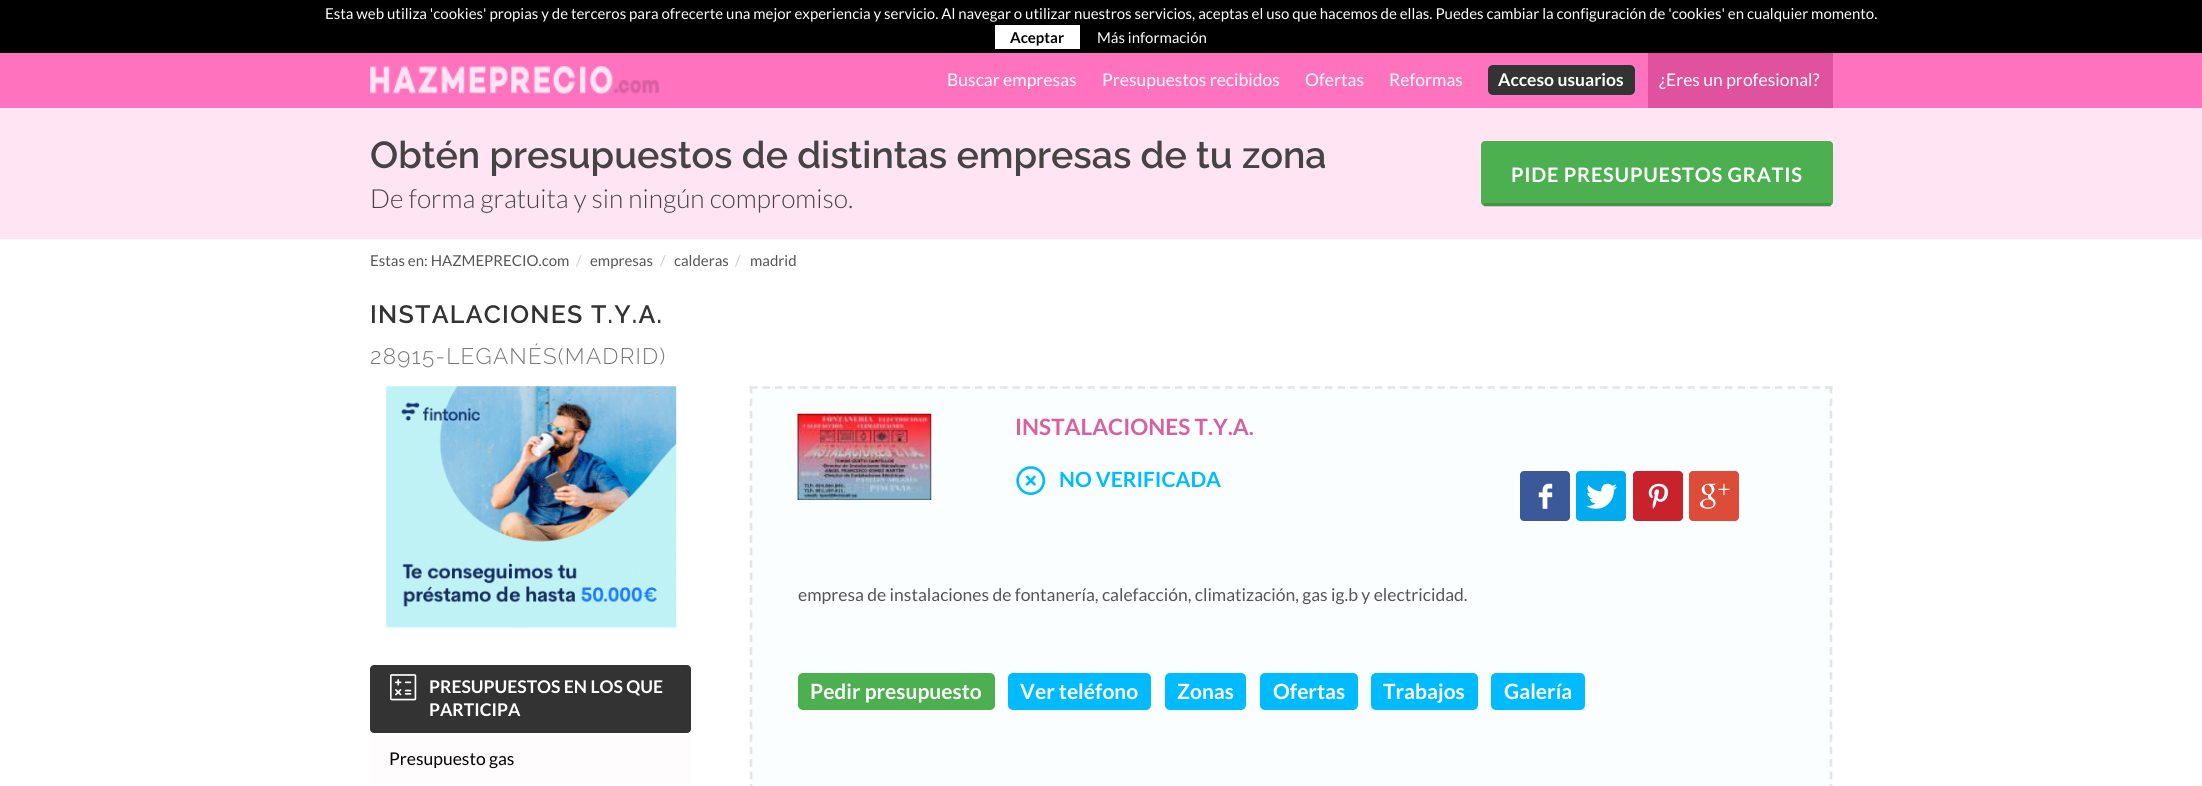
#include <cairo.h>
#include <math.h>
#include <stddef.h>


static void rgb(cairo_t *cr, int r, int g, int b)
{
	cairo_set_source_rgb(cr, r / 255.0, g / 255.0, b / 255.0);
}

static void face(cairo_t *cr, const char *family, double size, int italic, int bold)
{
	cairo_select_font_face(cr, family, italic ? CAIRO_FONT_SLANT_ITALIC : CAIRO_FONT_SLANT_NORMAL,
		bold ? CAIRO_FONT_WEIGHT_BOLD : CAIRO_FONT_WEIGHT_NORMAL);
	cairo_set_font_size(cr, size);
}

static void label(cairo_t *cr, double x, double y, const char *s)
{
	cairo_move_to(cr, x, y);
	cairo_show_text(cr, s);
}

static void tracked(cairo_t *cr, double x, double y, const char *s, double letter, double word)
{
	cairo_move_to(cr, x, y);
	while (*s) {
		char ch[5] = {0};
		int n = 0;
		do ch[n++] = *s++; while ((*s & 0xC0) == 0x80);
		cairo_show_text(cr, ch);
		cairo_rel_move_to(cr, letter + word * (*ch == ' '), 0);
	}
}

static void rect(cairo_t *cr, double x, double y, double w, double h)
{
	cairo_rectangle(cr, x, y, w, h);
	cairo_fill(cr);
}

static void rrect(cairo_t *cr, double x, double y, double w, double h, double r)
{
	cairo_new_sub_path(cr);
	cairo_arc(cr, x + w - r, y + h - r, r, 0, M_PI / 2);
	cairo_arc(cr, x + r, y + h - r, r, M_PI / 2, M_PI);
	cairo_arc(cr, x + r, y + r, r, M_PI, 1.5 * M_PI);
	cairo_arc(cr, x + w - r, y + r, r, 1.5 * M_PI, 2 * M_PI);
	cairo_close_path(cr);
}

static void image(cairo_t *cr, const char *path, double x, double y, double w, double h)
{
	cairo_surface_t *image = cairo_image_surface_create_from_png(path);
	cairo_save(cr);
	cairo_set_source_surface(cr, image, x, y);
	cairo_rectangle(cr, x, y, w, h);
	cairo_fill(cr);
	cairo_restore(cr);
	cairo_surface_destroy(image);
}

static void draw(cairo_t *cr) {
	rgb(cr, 255, 255, 255);
	cairo_paint(cr);
	rgb(cr, 0, 0, 0);
	rect(cr, 0, 0, 2202, 53);
	face(cr, "Lato", 15, 0, 0);
	rgb(cr, 255, 255, 255);
	label(cr, 325, 19, "Esta web utiliza 'cookies' propias y de terceros para ofrecerte una mejor experiencia y servicio. Al navegar o utilizar nuestros servicios, aceptas el uso que hacemos de ellas. Puedes cambiar la configuración de 'cookies' en cualquier momento.");
	rect(cr, 995, 25, 85, 24);
	face(cr, "Lato", 15, 0, 1);
	rgb(cr, 0, 0, 0);
	label(cr, 1010, 43, "Aceptar");
	face(cr, "Lato", 15, 0, 0);
	rgb(cr, 255, 255, 255);
	label(cr, 1097, 43, "Más información");
	rgb(cr, 255, 114, 190);
	rect(cr, 0, 53, 2202, 55);
	image(cr, "image0.png", 370, 66, 289, 28);
	face(cr, "Lato", 17.5, 0, 0);
	rgb(cr, 255, 255, 255);
	label(cr, 947, 86, "Buscar empresas");
	label(cr, 1102, 86, "Presupuestos recibidos");
	label(cr, 1305, 86, "Ofertas");
	label(cr, 1389, 86, "Reformas");
	rgb(cr, 51, 51, 51);
	rrect(cr, 1488, 65, 147, 30, 5);
	cairo_fill(cr);
	face(cr, "Lato", 17.5, 0, 1);
	rgb(cr, 255, 255, 255);
	label(cr, 1498, 86, "Acceso usuarios");
	rgb(cr, 224, 81, 158);
	rect(cr, 1648, 53, 185, 55);
	face(cr, "Lato", 17.5, 0, 0);
	rgb(cr, 255, 255, 255);
	label(cr, 1659, 86, "¿Eres un profesional?");
	rgb(cr, 255, 229, 243);
	rect(cr, 0, 108, 2202, 131);
	face(cr, "Raleway SemiBold", 37.5, 0, 0);
	rgb(cr, 68, 68, 68);
	label(cr, 370, 168, "Obtén presupuestos de distintas empresas de tu zona");
	rgb(cr, 76, 175, 80);
	rrect(cr, 1481, 141, 352, 65, 4);
	cairo_fill(cr);
	cairo_set_source_rgba(cr, 0, 0, 0, 0.15);
	rect(cr, 1484, 203, 347, 4);
	face(cr, "Lato", 20, 0, 1);
	rgb(cr, 255, 255, 255);
	tracked(cr, 1511, 182, "PIDE PRESUPUESTOS GRATIS", 0.75, 0);
	face(cr, "Lato Light", 26.25, 0, 0);
	rgb(cr, 68, 68, 68);
	label(cr, 370, 208, "De forma gratuita y sin ningún compromiso.");
	face(cr, "Lato", 15, 0, 0);
	rgb(cr, 85, 85, 85);
	label(cr, 370, 266, "Estas en: HAZMEPRECIO.com");
	rgb(cr, 204, 204, 204);
	label(cr, 576, 266, "/");
	rgb(cr, 85, 85, 85);
	label(cr, 590, 266, "empresas");
	rgb(cr, 204, 204, 204);
	label(cr, 660, 266, "/");
	rgb(cr, 85, 85, 85);
	label(cr, 674, 266, "calderas");
	rgb(cr, 204, 204, 204);
	label(cr, 735, 266, "/");
	rgb(cr, 85, 85, 85);
	label(cr, 750, 266, "madrid");
	face(cr, "Raleway SemiBold", 25, 0, 0);
	rgb(cr, 51, 51, 51);
	tracked(cr, 370, 323, "INSTALACIONES T.Y.A.", 1.25, 0);
	face(cr, "Raleway Light", 22.5, 0, 0);
	rgb(cr, 119, 119, 119);
	tracked(cr, 370, 364, "28915-LEGANÉS(MADRID)", 1.25, 0);
	rgb(cr, 250, 254, 255);
	rect(cr, 750, 386, 1083, 400);
	cairo_new_path(cr);
	cairo_move_to(cr, 750, 387.5);
	cairo_line_to(cr, 1832.5, 387.5);
	rgb(cr, 229, 229, 229);
	cairo_set_line_width(cr, 2.5);
	cairo_set_dash(cr, (double[]){7.5, 5}, 2, 0);
	cairo_stroke(cr);
	cairo_new_path(cr);
	cairo_move_to(cr, 1831, 386);
	cairo_line_to(cr, 1831, 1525);
	cairo_set_dash(cr, (double[]){7.5, 4.94}, 2, 0);
	cairo_stroke(cr);
	cairo_new_path(cr);
	cairo_move_to(cr, 751, 386);
	cairo_line_to(cr, 751, 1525);
	cairo_stroke(cr);
	image(cr, "image1.png", 797, 413, 135, 87);
	face(cr, "Lato", 22.5, 0, 1);
	rgb(cr, 216, 96, 161);
	label(cr, 1015, 435, "INSTALACIONES T.Y.A.");
	image(cr, "image2.png", 1016, 466, 30, 29);
	face(cr, "Lato", 21, 0, 1);
	rgb(cr, 0, 187, 255);
	label(cr, 1059, 487, "NO VERIFICADA");
	rgb(cr, 59, 89, 152);
	rrect(cr, 1520, 471, 50, 50, 4);
	cairo_fill(cr);
	image(cr, "image3.png", 1538, 483, 15, 26);
	rgb(cr, 0, 172, 238);
	rrect(cr, 1576, 471, 50, 50, 4);
	cairo_fill(cr);
	image(cr, "image4.png", 1586, 483, 31, 26);
	rgb(cr, 200, 35, 44);
	rrect(cr, 1633, 471, 50, 50, 4);
	cairo_fill(cr);
	image(cr, "image5.png", 1648, 483, 21, 26);
	rgb(cr, 221, 75, 57);
	rrect(cr, 1689, 471, 50, 50, 4);
	cairo_fill(cr);
	image(cr, "image6.png", 1700, 483, 30, 26);
	face(cr, "Lato", 17.5, 0, 0);
	rgb(cr, 85, 85, 85);
	label(cr, 798, 601, "empresa de instalaciones de fontanería, calefacción, climatización, gas ig.b y electricidad.");
	rgb(cr, 76, 175, 80);
	rrect(cr, 798, 673, 197, 37, 5);
	cairo_fill(cr);
	face(cr, "Lato", 21, 0, 1);
	rgb(cr, 255, 255, 255);
	label(cr, 810, 699, "Pedir presupuesto");
	rgb(cr, 0, 187, 255);
	rrect(cr, 1008, 673, 143, 37, 5);
	cairo_fill(cr);
	rgb(cr, 255, 255, 255);
	label(cr, 1020, 699, "Ver teléfono");
	rgb(cr, 0, 187, 255);
	rrect(cr, 1165, 673, 81, 37, 5);
	cairo_fill(cr);
	rgb(cr, 255, 255, 255);
	label(cr, 1177, 699, "Zonas");
	rgb(cr, 0, 187, 255);
	rrect(cr, 1260, 673, 98, 37, 5);
	cairo_fill(cr);
	rgb(cr, 255, 255, 255);
	label(cr, 1273, 699, "Ofertas");
	rgb(cr, 0, 187, 255);
	rrect(cr, 1371, 673, 107, 37, 5);
	cairo_fill(cr);
	rgb(cr, 255, 255, 255);
	label(cr, 1383, 699, "Trabajos");
	rgb(cr, 0, 187, 255);
	rrect(cr, 1491, 673, 94, 37, 5);
	cairo_fill(cr);
	rgb(cr, 255, 255, 255);
	label(cr, 1504, 699, "Galería");
	image(cr, "image7.png", 386, 386, 291, 242);
	rgb(cr, 51, 51, 51);
	rrect(cr, 370, 665, 321, 68, 4);
	cairo_fill(cr);
	image(cr, "image8.png", 390, 674, 27, 27);
	face(cr, "Lato", 17.5, 0, 1);
	rgb(cr, 255, 255, 255);
	label(cr, 429, 693, "PRESUPUESTOS EN LOS QUE");
	label(cr, 429, 716, "PARTICIPA");
	rgb(cr, 255, 252, 253);
	rrect(cr, 370, 735, 321, 49, 5);
	cairo_fill(cr);
	face(cr, "Lato", 17.5, 0, 0);
	rgb(cr, 0, 0, 0);
	label(cr, 389, 765, "Presupuesto gas");
}

int main(void) {
	cairo_surface_t *surface = cairo_image_surface_create(CAIRO_FORMAT_RGB24, 2202, 786);
	cairo_t *cr = cairo_create(surface);
	cairo_font_options_t *options = cairo_font_options_create();
	cairo_font_options_set_hint_metrics(options, CAIRO_HINT_METRICS_OFF);
	cairo_font_options_set_hint_style(options, CAIRO_HINT_STYLE_NONE);
	cairo_set_font_options(cr, options);
	cairo_set_miter_limit(cr, 4);
	draw(cr);
	cairo_surface_write_to_png(surface, "render.png");
	cairo_font_options_destroy(options);
	cairo_destroy(cr);
	cairo_surface_destroy(surface);
	return 0;
}
